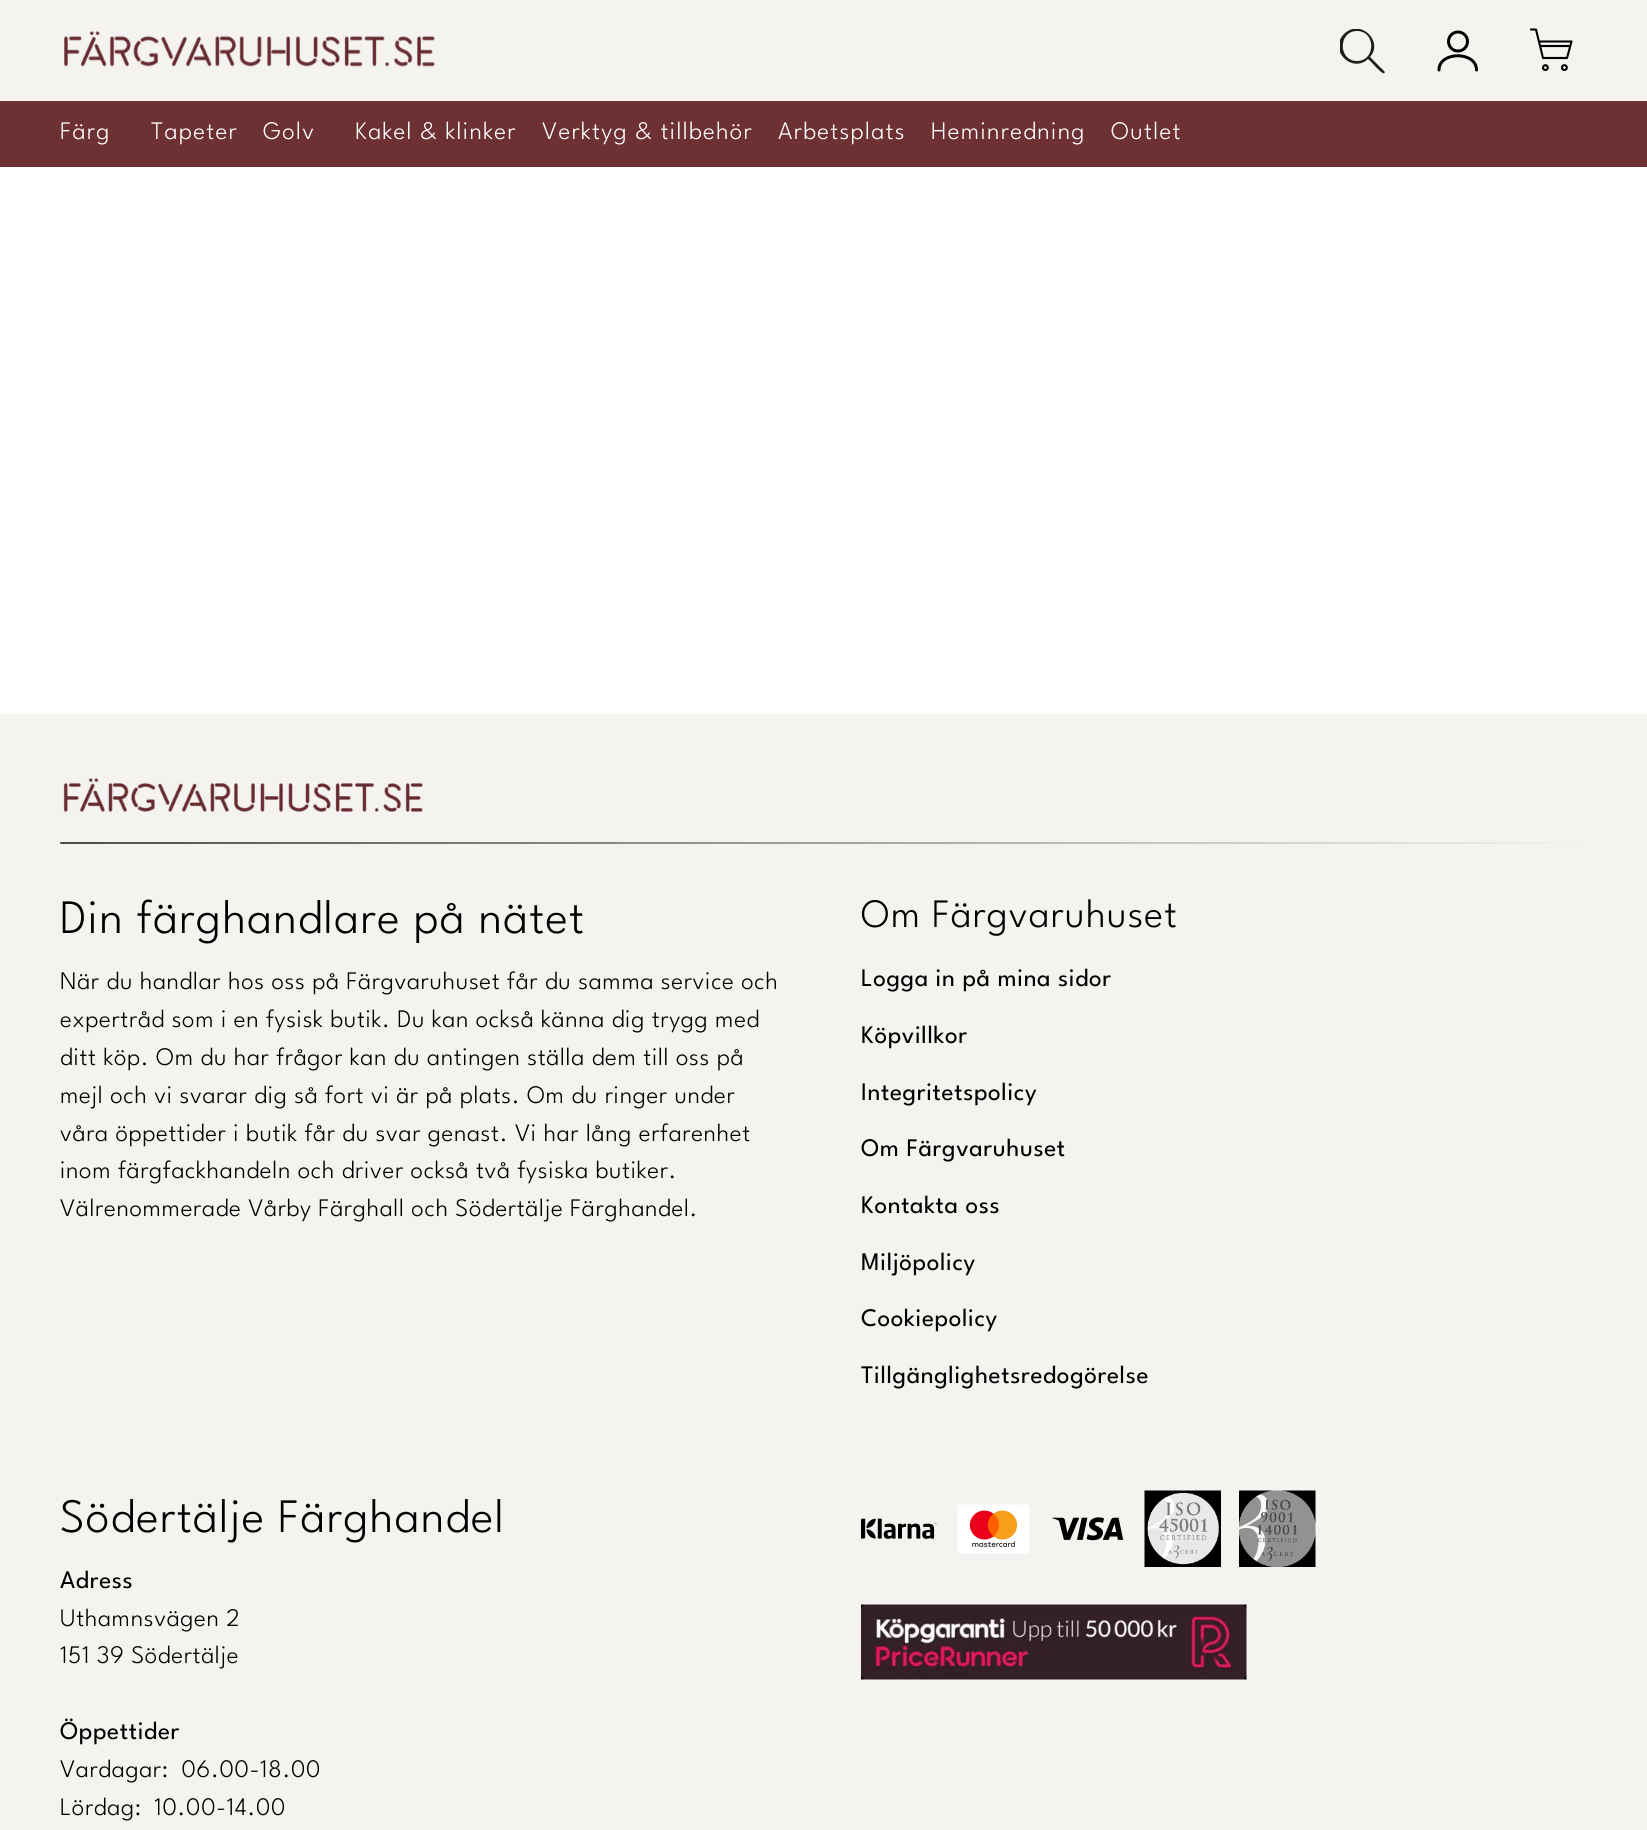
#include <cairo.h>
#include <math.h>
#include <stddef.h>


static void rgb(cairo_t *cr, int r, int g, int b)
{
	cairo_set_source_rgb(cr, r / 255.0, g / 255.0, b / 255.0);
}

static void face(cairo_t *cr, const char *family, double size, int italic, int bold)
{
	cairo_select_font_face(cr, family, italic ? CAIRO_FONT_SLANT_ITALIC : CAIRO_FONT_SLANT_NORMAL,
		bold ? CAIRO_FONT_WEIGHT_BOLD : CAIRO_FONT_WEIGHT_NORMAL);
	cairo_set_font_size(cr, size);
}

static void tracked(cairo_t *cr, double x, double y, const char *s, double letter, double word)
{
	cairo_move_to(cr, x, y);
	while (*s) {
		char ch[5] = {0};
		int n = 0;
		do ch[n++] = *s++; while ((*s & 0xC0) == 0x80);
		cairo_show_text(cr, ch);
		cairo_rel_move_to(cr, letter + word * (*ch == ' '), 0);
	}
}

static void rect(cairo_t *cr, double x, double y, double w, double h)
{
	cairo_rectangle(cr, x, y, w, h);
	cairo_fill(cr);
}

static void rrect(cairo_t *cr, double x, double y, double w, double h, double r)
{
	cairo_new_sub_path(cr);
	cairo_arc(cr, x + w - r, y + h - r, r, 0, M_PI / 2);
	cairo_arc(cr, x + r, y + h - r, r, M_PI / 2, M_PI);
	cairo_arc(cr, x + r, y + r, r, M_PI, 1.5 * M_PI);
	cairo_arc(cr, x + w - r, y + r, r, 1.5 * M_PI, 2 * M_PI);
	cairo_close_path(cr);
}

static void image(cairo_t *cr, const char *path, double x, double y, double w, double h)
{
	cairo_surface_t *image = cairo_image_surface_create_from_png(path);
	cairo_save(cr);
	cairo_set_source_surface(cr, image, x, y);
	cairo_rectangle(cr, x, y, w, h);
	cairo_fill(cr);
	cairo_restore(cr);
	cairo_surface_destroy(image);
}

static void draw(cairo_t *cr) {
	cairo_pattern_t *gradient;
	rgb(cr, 255, 255, 255);
	cairo_paint(cr);
	rgb(cr, 245, 243, 239);
	rect(cr, 0, 0, 1647, 101);
	image(cr, "image0.png", 64, 31, 371, 36);
	cairo_save(cr);
	cairo_rectangle(cr, 1340, 29, 45, 45);
	cairo_clip(cr);
	rgb(cr, 29, 29, 27);
	cairo_new_path(cr);
	cairo_move_to(cr, 1384, 71);
	cairo_line_to(cr, 1370, 57);
	cairo_curve_to(cr, 1384, 41, 1360, 18, 1344, 34);
	cairo_curve_to(cr, 1328, 50, 1352, 74, 1368, 59);
	cairo_curve_to(cr, 1371, 61, 1382, 75, 1384, 73);
	cairo_curve_to(cr, 1385, 73, 1385, 72, 1384, 71);
	cairo_close_path(cr);
	cairo_move_to(cr, 1357, 61);
	cairo_curve_to(cr, 1338, 61, 1338, 31, 1357, 31);
	cairo_curve_to(cr, 1376, 31, 1376, 61, 1357, 61);
	cairo_close_path(cr);
	cairo_fill(cr);
	cairo_restore(cr);
	cairo_arc(cr, 1458, 41.5, 9.5, 0, 2 * M_PI);
	rgb(cr, 0, 0, 0);
	cairo_set_line_width(cr, 3);
	cairo_stroke(cr);
	cairo_new_path(cr);
	cairo_move_to(cr, 1439, 70);
	cairo_curve_to(cr, 1439, 51, 1476.5, 51, 1476.5, 70);
	cairo_set_line_cap(cr, CAIRO_LINE_CAP_ROUND);
	cairo_set_line_join(cr, CAIRO_LINE_JOIN_ROUND);
	cairo_stroke(cr);
	cairo_new_path(cr);
	cairo_move_to(cr, 1531, 29.5);
	cairo_line_to(cr, 1536, 29.5);
	cairo_line_to(cr, 1543, 58);
	cairo_line_to(cr, 1567, 58);
	cairo_line_to(cr, 1571.5, 41.5);
	cairo_line_to(cr, 1540.5, 41.5);
	cairo_move_to(cr, 1540.5, 46);
	cairo_line_to(cr, 1569, 46);
	cairo_set_line_width(cr, 2.1);
	cairo_stroke(cr);
	cairo_arc(cr, 1545.4, 67.6, 2.4, 0, 2 * M_PI);
	cairo_set_line_cap(cr, CAIRO_LINE_CAP_BUTT);
	cairo_set_line_join(cr, CAIRO_LINE_JOIN_MITER);
	cairo_stroke(cr);
	cairo_arc(cr, 1564.4, 67.6, 2.4, 0, 2 * M_PI);
	cairo_stroke(cr);
	rgb(cr, 109, 48, 51);
	rect(cr, 0, 101, 1647, 66);
	face(cr, "League Spartan Light", 25.2, 0, 0);
	rgb(cr, 255, 255, 255);
	tracked(cr, 60, 139, "Färg", 1.25, 0);
	tracked(cr, 151, 139, "Tapeter", 1.25, 0);
	tracked(cr, 263, 139, "Golv", 1.25, 0);
	tracked(cr, 355, 139, "Kakel & klinker", 1.25, 0);
	tracked(cr, 542, 139, "Verktyg & tillbehör", 1.25, 0);
	tracked(cr, 778, 139, "Arbetsplats", 1.25, 0);
	tracked(cr, 931, 139, "Heminredning", 1.25, 0);
	tracked(cr, 1111, 139, "Outlet", 1.25, 0);
	rgb(cr, 245, 243, 239);
	rect(cr, 0, 714, 1647, 1116);
	image(cr, "image1.png", 63, 778, 360, 34);
	gradient = cairo_pattern_create_linear(60, 842, 1587, 842);
	cairo_pattern_add_color_stop_rgba(gradient, 0, 0.302, 0.302, 0.302, 1);
	cairo_pattern_add_color_stop_rgba(gradient, 1, 0.961, 0.953, 0.937, 1);
	cairo_set_source(cr, gradient);
	cairo_pattern_destroy(gradient);
	rrect(cr, 60, 842, 1527, 2, 1);
	cairo_fill(cr);
	face(cr, "League Spartan Light", 47.9, 0, 0);
	rgb(cr, 0, 0, 0);
	tracked(cr, 60, 933, "Din färghandlare på nätet", 1.2, 0);
	face(cr, "League Spartan Light", 25.2, 0, 0);
	tracked(cr, 60, 989, "När du handlar hos oss på Färgvaruhuset får du samma service och", 0.63, 0);
	tracked(cr, 60, 1027, "expertråd som i en fysisk butik. Du kan också känna dig trygg med", 0.63, 0);
	tracked(cr, 60, 1065, "ditt köp. Om du har frågor kan du antingen ställa dem till oss på", 0.63, 0);
	tracked(cr, 60, 1103, "mejl och vi svarar dig så fort vi är på plats. Om du ringer under", 0.63, 0);
	tracked(cr, 60, 1141, "våra öppettider i butik får du svar genast. Vi har lång erfarenhet", 0.63, 0);
	tracked(cr, 60, 1178, "inom färgfackhandeln och driver också två fysiska butiker.", 0.63, 0);
	tracked(cr, 60, 1216, "Välrenommerade Vårby Färghall och Södertälje Färghandel.", 0.63, 0);
	face(cr, "League Spartan Light", 40.25, 0, 0);
	tracked(cr, 861, 927, "Om Färgvaruhuset", 1, 0);
	face(cr, "League Spartan", 25.2, 0, 0);
	tracked(cr, 861, 986, "Logga in på mina sidor", 0.63, 0);
	tracked(cr, 861, 1043, "Köpvillkor", 0.63, 0);
	tracked(cr, 861, 1100, "Integritetspolicy", 0.63, 0);
	tracked(cr, 861, 1156, "Om Färgvaruhuset", 0.63, 0);
	tracked(cr, 861, 1213, "Kontakta oss", 0.63, 0);
	tracked(cr, 861, 1270, "Miljöpolicy", 0.63, 0);
	tracked(cr, 861, 1326, "Cookiepolicy", 0.63, 0);
	tracked(cr, 861, 1383, "Tillgänglighetsredogörelse", 0.63, 0);
	face(cr, "League Spartan Light", 47.9, 0, 0);
	tracked(cr, 60, 1532, "Södertälje Färghandel", 1.2, 0);
	face(cr, "League Spartan", 25.2, 0, 0);
	tracked(cr, 60, 1588, "Adress", 0.63, 0);
	face(cr, "League Spartan Light", 25.2, 0, 0);
	tracked(cr, 60, 1626, "Uthamnsvägen 2", 0.63, 0);
	tracked(cr, 60, 1663, "151 39 Södertälje", 0.63, 0);
	face(cr, "League Spartan", 25.2, 0, 0);
	tracked(cr, 60, 1739, "Öppettider", 0.63, 0);
	face(cr, "League Spartan Light", 25.2, 0, 0);
	tracked(cr, 60, 1777, "Vardagar: 06.00-18.00", 0.63, 6);
	tracked(cr, 60, 1815, "Lördag: 10.00-14.00", 0.63, 6);
	image(cr, "image2.png", 861, 1518, 76, 21);
	image(cr, "image3.png", 956, 1503, 75, 52);
	image(cr, "image4.png", 1052, 1517, 72, 24);
	image(cr, "image5.png", 1144, 1490, 77, 77);
	image(cr, "image6.png", 1239, 1490, 77, 77);
	image(cr, "image7.png", 861, 1604, 386, 76);
}

int main(void) {
	cairo_surface_t *surface = cairo_image_surface_create(CAIRO_FORMAT_RGB24, 1647, 1830);
	cairo_t *cr = cairo_create(surface);
	cairo_font_options_t *options = cairo_font_options_create();
	cairo_font_options_set_hint_metrics(options, CAIRO_HINT_METRICS_OFF);
	cairo_font_options_set_hint_style(options, CAIRO_HINT_STYLE_NONE);
	cairo_set_font_options(cr, options);
	cairo_set_miter_limit(cr, 4);
	draw(cr);
	cairo_surface_write_to_png(surface, "render.png");
	cairo_font_options_destroy(options);
	cairo_destroy(cr);
	cairo_surface_destroy(surface);
	return 0;
}
